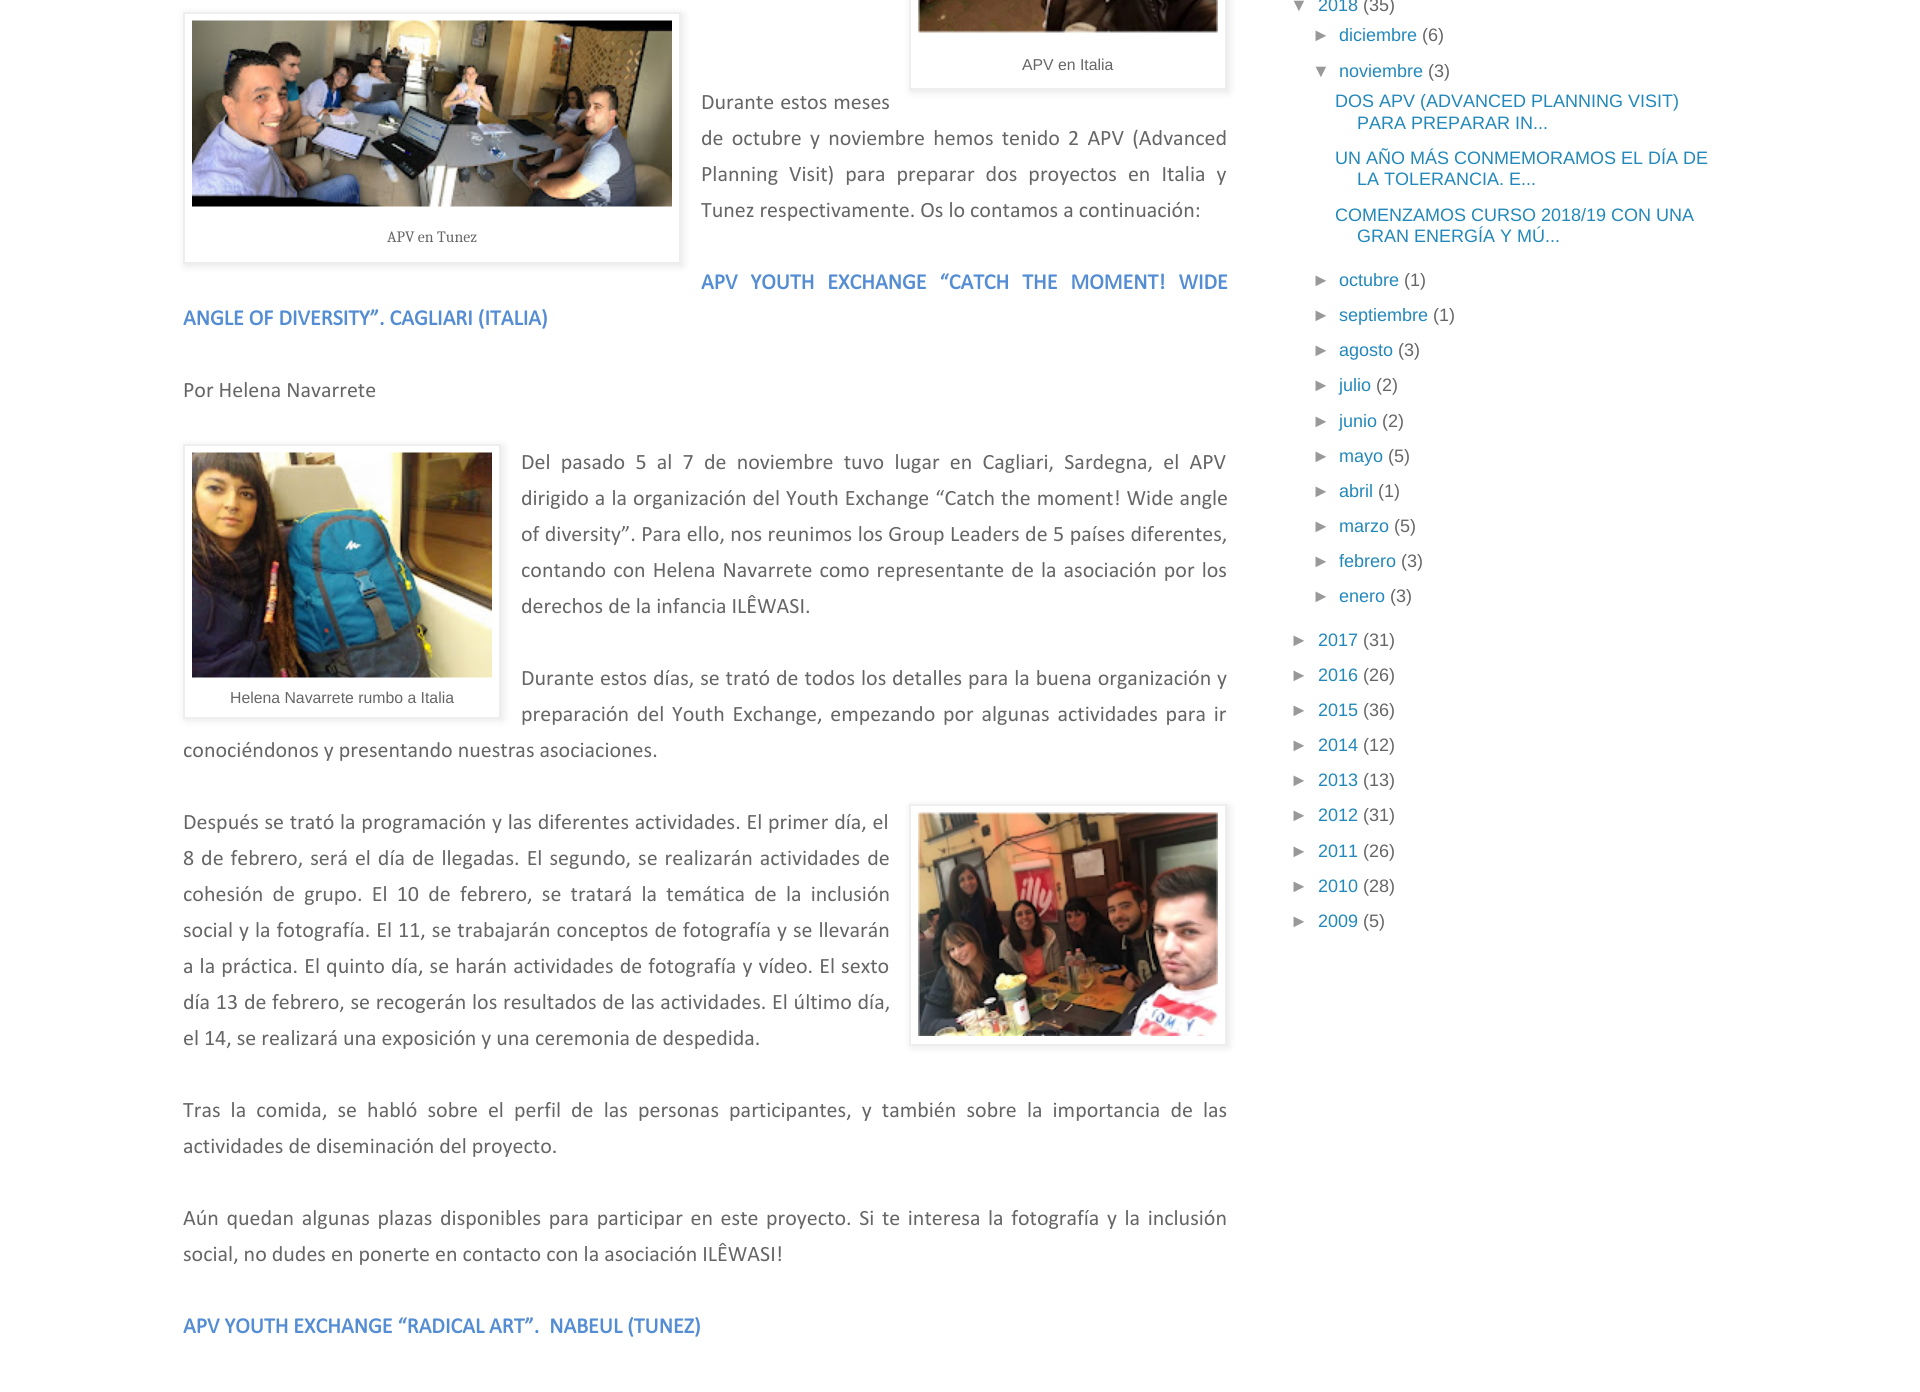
#include <cairo.h>
#include <math.h>
#include <stddef.h>


static void rgb(cairo_t *cr, int r, int g, int b)
{
	cairo_set_source_rgb(cr, r / 255.0, g / 255.0, b / 255.0);
}

static void face(cairo_t *cr, const char *family, double size, int italic, int bold)
{
	cairo_select_font_face(cr, family, italic ? CAIRO_FONT_SLANT_ITALIC : CAIRO_FONT_SLANT_NORMAL,
		bold ? CAIRO_FONT_WEIGHT_BOLD : CAIRO_FONT_WEIGHT_NORMAL);
	cairo_set_font_size(cr, size);
}

static void label(cairo_t *cr, double x, double y, const char *s)
{
	cairo_move_to(cr, x, y);
	cairo_show_text(cr, s);
}

static void tracked(cairo_t *cr, double x, double y, const char *s, double letter, double word)
{
	cairo_move_to(cr, x, y);
	while (*s) {
		char ch[5] = {0};
		int n = 0;
		do ch[n++] = *s++; while ((*s & 0xC0) == 0x80);
		cairo_show_text(cr, ch);
		cairo_rel_move_to(cr, letter + word * (*ch == ' '), 0);
	}
}

static void rrect(cairo_t *cr, double x, double y, double w, double h, double r)
{
	cairo_new_sub_path(cr);
	cairo_arc(cr, x + w - r, y + h - r, r, 0, M_PI / 2);
	cairo_arc(cr, x + r, y + h - r, r, M_PI / 2, M_PI);
	cairo_arc(cr, x + r, y + r, r, M_PI, 1.5 * M_PI);
	cairo_arc(cr, x + w - r, y + r, r, 1.5 * M_PI, 2 * M_PI);
	cairo_close_path(cr);
}

static void soft_shadow(cairo_t *cr, double x, double y, double w, double h, double r, double blur, double alpha)
{
	cairo_push_group_with_content(cr, CAIRO_CONTENT_ALPHA);
	cairo_set_operator(cr, CAIRO_OPERATOR_SOURCE);
	for (int i = 15; i >= -15 && fmin(w, h) + blur * i / 3 > 0; i -= 2) {
		double e = blur * i / 6;
		cairo_set_source_rgba(cr, 0, 0, 0, alpha * erfc((i - 1) / 8.5) / 2);
		rrect(cr, x - e, y - e, w + 2 * e, h + 2 * e, fmax(0, fmin(r + e + blur * .6, fmin(w, h) / 2 + e)));
		cairo_fill(cr);
	}
	cairo_pattern_t *soft = cairo_pop_group(cr);
	cairo_mask(cr, soft);
	cairo_pattern_destroy(soft);
}

static void image(cairo_t *cr, const char *path, double x, double y, double w, double h)
{
	cairo_surface_t *image = cairo_image_surface_create_from_png(path);
	cairo_save(cr);
	cairo_set_source_surface(cr, image, x, y);
	cairo_rectangle(cr, x, y, w, h);
	cairo_fill(cr);
	cairo_restore(cr);
	cairo_surface_destroy(image);
}

static void draw(cairo_t *cr) {
	rgb(cr, 255, 255, 255);
	cairo_paint(cr);
	cairo_save(cr);
	cairo_set_fill_rule(cr, CAIRO_FILL_RULE_EVEN_ODD);
	cairo_new_path(cr);
	cairo_move_to(cr, 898, 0);
	cairo_line_to(cr, 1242, 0);
	cairo_line_to(cr, 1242, 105);
	cairo_line_to(cr, 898, 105);
	cairo_close_path(cr);
	cairo_move_to(cr, 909, -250);
	cairo_line_to(cr, 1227, -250);
	cairo_line_to(cr, 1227, 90);
	cairo_line_to(cr, 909, 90);
	cairo_close_path(cr);
	cairo_clip(cr);
	rgb(cr, 0, 0, 0);
	soft_shadow(cr, 911, -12, 318, 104, 0, 4, 0.1);
	cairo_restore(cr);
	cairo_rectangle(cr, 910, -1, 316, 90);
	rgb(cr, 238, 238, 238);
	cairo_stroke(cr);
	image(cr, "image0.png", 918, 0, 300, 33);
	face(cr, "Liberation Sans", 15.8, 0, 0);
	rgb(cr, 102, 102, 102);
	label(cr, 1022, 70, "APV en Italia");
	face(cr, "calibri", 22, 0, 0);
	tracked(cr, 701, 109, "Durante estos meses", 0, 1);
	tracked(cr, 701, 145, "de octubre y noviembre hemos tenido 2 APV (Advanced", 0, 3.25);
	tracked(cr, 701, 181, "Planning Visit) para preparar dos proyectos en Italia y", 0, 6);
	label(cr, 701, 217, "Tunez respectivamente. Os lo contamos a continuación:");
	cairo_save(cr);
	cairo_set_fill_rule(cr, CAIRO_FILL_RULE_EVEN_ODD);
	cairo_new_path(cr);
	cairo_move_to(cr, 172, 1);
	cairo_line_to(cr, 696, 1);
	cairo_line_to(cr, 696, 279);
	cairo_line_to(cr, 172, 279);
	cairo_close_path(cr);
	cairo_move_to(cr, 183, 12);
	cairo_line_to(cr, 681, 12);
	cairo_line_to(cr, 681, 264);
	cairo_line_to(cr, 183, 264);
	cairo_close_path(cr);
	cairo_clip(cr);
	rgb(cr, 0, 0, 0);
	soft_shadow(cr, 185, 14, 498, 252, 0, 4, 0.1);
	cairo_restore(cr);
	cairo_rectangle(cr, 184, 13, 496, 250);
	rgb(cr, 238, 238, 238);
	cairo_stroke(cr);
	image(cr, "image1.png", 192, 20, 480, 187);
	face(cr, "Caladea", 15.8, 0, 0);
	rgb(cr, 102, 102, 102);
	label(cr, 387, 242, "APV en Tunez");
	face(cr, "calibri", 22, 0, 1);
	rgb(cr, 84, 141, 212);
	tracked(cr, 701, 289, "APV YOUTH EXCHANGE “CATCH THE MOMENT! WIDE", 0, 8);
	label(cr, 183, 325, "ANGLE OF DIVERSITY”. CAGLIARI (ITALIA)");
	face(cr, "calibri", 22, 0, 0);
	rgb(cr, 102, 102, 102);
	label(cr, 183, 397, "Por Helena Navarrete");
	tracked(cr, 521, 469, "Del pasado 5 al 7 de noviembre tuvo lugar en Cagliari, Sardegna, el APV", 0, 5.25);
	tracked(cr, 521, 505, "dirigido a la organización del Youth Exchange “Catch the moment! Wide angle", 0, 1);
	tracked(cr, 521, 541, "of diversity”. Para ello, nos reunimos los Group Leaders de 5 países diferentes,", 0, 0.5);
	tracked(cr, 521, 577, "contando con Helena Navarrete como representante de la asociación por los", 0, 2.1);
	label(cr, 521, 613, "derechos de la infancia ILÊWASI.");
	tracked(cr, 521, 685, "Durante estos días, se trató de todos los detalles para la buena organización y", 0, 0.9);
	tracked(cr, 521, 721, "preparación del Youth Exchange, empezando por algunas actividades para ir", 0, 2.75);
	label(cr, 183, 757, "conociéndonos y presentando nuestras asociaciones.");
	rgb(cr, 0, 0, 0);
	soft_shadow(cr, 185, 446, 318, 274, 0, 4, 0.1);
	rgb(cr, 255, 255, 255);
	cairo_rectangle(cr, 184, 445, 316, 273);
	cairo_fill_preserve(cr);
	rgb(cr, 238, 238, 238);
	cairo_stroke(cr);
	image(cr, "image2.png", 192, 452, 300, 226);
	face(cr, "Liberation Sans", 15.8, 0, 0);
	rgb(cr, 102, 102, 102);
	label(cr, 230, 703, "Helena Navarrete rumbo a Italia");
	face(cr, "calibri", 22, 0, 0);
	tracked(cr, 183, 829, "Después se trató la programación y las diferentes actividades. El primer día, el", 0, 0.75);
	rgb(cr, 0, 0, 0);
	soft_shadow(cr, 911, 806, 318, 241, 0, 4, 0.1);
	rgb(cr, 255, 255, 255);
	cairo_rectangle(cr, 910, 805, 316, 240);
	cairo_fill_preserve(cr);
	rgb(cr, 238, 238, 238);
	cairo_stroke(cr);
	image(cr, "image3.png", 918, 812, 300, 224);
	rgb(cr, 102, 102, 102);
	tracked(cr, 183, 865, "8 de febrero, será el día de llegadas. El segundo, se realizarán actividades de", 0, 2);
	tracked(cr, 183, 901, "cohesión de grupo. El 10 de febrero, se tratará la temática de la inclusión", 0, 4.25);
	tracked(cr, 183, 937, "social y la fotografía. El 11, se trabajarán conceptos de fotografía y se llevarán", 0, 1);
	tracked(cr, 183, 973, "a la práctica. El quinto día, se harán actividades de fotografía y vídeo. El sexto", 0, 1.1);
	tracked(cr, 183, 1009, "día 13 de febrero, se recogerán los resultados de las actividades. El último día,", 0, 0.75);
	label(cr, 183, 1045, "el 14, se realizará una exposición y una ceremonia de despedida.");
	tracked(cr, 183, 1117, "Tras la comida, se habló sobre el perfil de las personas participantes, y también sobre la importancia de las", 0, 5.1);
	label(cr, 183, 1153, "actividades de diseminación del proyecto.");
	tracked(cr, 183, 1225, "Aún quedan algunas plazas disponibles para participar en este proyecto. Si te interesa la fotografía y la inclusión", 0, 2.6);
	label(cr, 183, 1261, "social, no dudes en ponerte en contacto con la asociación ILÊWASI!");
	face(cr, "calibri", 22, 0, 1);
	rgb(cr, 84, 141, 212);
	label(cr, 183, 1333, "APV YOUTH EXCHANGE “RADICAL ART”.  NABEUL (TUNEZ)");
	face(cr, "Liberation Sans", 18, 0, 0);
	rgb(cr, 153, 153, 153);
	label(cr, 1290, 11, "▼");
	rgb(cr, 34, 136, 187);
	label(cr, 1318, 11, "2018");
	rgb(cr, 102, 102, 102);
	label(cr, 1363, 11, "(35)");
	rgb(cr, 153, 153, 153);
	label(cr, 1312, 41, "►");
	rgb(cr, 34, 136, 187);
	label(cr, 1339, 41, "diciembre");
	rgb(cr, 102, 102, 102);
	label(cr, 1422, 41, "(6)");
	rgb(cr, 153, 153, 153);
	label(cr, 1312, 77, "▼");
	rgb(cr, 34, 136, 187);
	label(cr, 1339, 77, "noviembre");
	rgb(cr, 102, 102, 102);
	label(cr, 1428, 77, "(3)");
	rgb(cr, 34, 136, 187);
	label(cr, 1335, 107, "DOS APV (ADVANCED PLANNING VISIT)");
	label(cr, 1357, 129, "PARA PREPARAR IN...");
	label(cr, 1335, 164, "UN AÑO MÁS CONMEMORAMOS EL DÍA DE");
	label(cr, 1357, 185, "LA TOLERANCIA. E...");
	label(cr, 1335, 221, "COMENZAMOS CURSO 2018/19 CON UNA");
	label(cr, 1357, 242, "GRAN ENERGÍA Y MÚ...");
	rgb(cr, 153, 153, 153);
	label(cr, 1312, 286, "►");
	rgb(cr, 34, 136, 187);
	label(cr, 1339, 286, "octubre");
	rgb(cr, 102, 102, 102);
	label(cr, 1404, 286, "(1)");
	rgb(cr, 153, 153, 153);
	label(cr, 1312, 321, "►");
	rgb(cr, 34, 136, 187);
	label(cr, 1339, 321, "septiembre");
	rgb(cr, 102, 102, 102);
	label(cr, 1433, 321, "(1)");
	rgb(cr, 153, 153, 153);
	label(cr, 1312, 356, "►");
	rgb(cr, 34, 136, 187);
	label(cr, 1339, 356, "agosto");
	rgb(cr, 102, 102, 102);
	label(cr, 1398, 356, "(3)");
	rgb(cr, 153, 153, 153);
	label(cr, 1312, 391, "►");
	rgb(cr, 34, 136, 187);
	label(cr, 1339, 391, "julio");
	rgb(cr, 102, 102, 102);
	label(cr, 1376, 391, "(2)");
	rgb(cr, 153, 153, 153);
	label(cr, 1312, 427, "►");
	rgb(cr, 34, 136, 187);
	label(cr, 1339, 427, "junio");
	rgb(cr, 102, 102, 102);
	label(cr, 1382, 427, "(2)");
	rgb(cr, 153, 153, 153);
	label(cr, 1312, 462, "►");
	rgb(cr, 34, 136, 187);
	label(cr, 1339, 462, "mayo");
	rgb(cr, 102, 102, 102);
	label(cr, 1388, 462, "(5)");
	rgb(cr, 153, 153, 153);
	label(cr, 1312, 497, "►");
	rgb(cr, 34, 136, 187);
	label(cr, 1339, 497, "abril");
	rgb(cr, 102, 102, 102);
	label(cr, 1378, 497, "(1)");
	rgb(cr, 153, 153, 153);
	label(cr, 1312, 532, "►");
	rgb(cr, 34, 136, 187);
	label(cr, 1339, 532, "marzo");
	rgb(cr, 102, 102, 102);
	label(cr, 1394, 532, "(5)");
	rgb(cr, 153, 153, 153);
	label(cr, 1312, 567, "►");
	rgb(cr, 34, 136, 187);
	label(cr, 1339, 567, "febrero");
	rgb(cr, 102, 102, 102);
	label(cr, 1401, 567, "(3)");
	rgb(cr, 153, 153, 153);
	label(cr, 1312, 602, "►");
	rgb(cr, 34, 136, 187);
	label(cr, 1339, 602, "enero");
	rgb(cr, 102, 102, 102);
	label(cr, 1390, 602, "(3)");
	rgb(cr, 153, 153, 153);
	label(cr, 1290, 646, "►");
	rgb(cr, 34, 136, 187);
	label(cr, 1318, 646, "2017");
	rgb(cr, 102, 102, 102);
	label(cr, 1363, 646, "(31)");
	rgb(cr, 153, 153, 153);
	label(cr, 1290, 681, "►");
	rgb(cr, 34, 136, 187);
	label(cr, 1318, 681, "2016");
	rgb(cr, 102, 102, 102);
	label(cr, 1363, 681, "(26)");
	rgb(cr, 153, 153, 153);
	label(cr, 1290, 716, "►");
	rgb(cr, 34, 136, 187);
	label(cr, 1318, 716, "2015");
	rgb(cr, 102, 102, 102);
	label(cr, 1363, 716, "(36)");
	rgb(cr, 153, 153, 153);
	label(cr, 1290, 751, "►");
	rgb(cr, 34, 136, 187);
	label(cr, 1318, 751, "2014");
	rgb(cr, 102, 102, 102);
	label(cr, 1363, 751, "(12)");
	rgb(cr, 153, 153, 153);
	label(cr, 1290, 786, "►");
	rgb(cr, 34, 136, 187);
	label(cr, 1318, 786, "2013");
	rgb(cr, 102, 102, 102);
	label(cr, 1363, 786, "(13)");
	rgb(cr, 153, 153, 153);
	label(cr, 1290, 821, "►");
	rgb(cr, 34, 136, 187);
	label(cr, 1318, 821, "2012");
	rgb(cr, 102, 102, 102);
	label(cr, 1363, 821, "(31)");
	rgb(cr, 153, 153, 153);
	label(cr, 1290, 857, "►");
	rgb(cr, 34, 136, 187);
	label(cr, 1318, 857, "2011");
	rgb(cr, 102, 102, 102);
	label(cr, 1363, 857, "(26)");
	rgb(cr, 153, 153, 153);
	label(cr, 1290, 892, "►");
	rgb(cr, 34, 136, 187);
	label(cr, 1318, 892, "2010");
	rgb(cr, 102, 102, 102);
	label(cr, 1363, 892, "(28)");
	rgb(cr, 153, 153, 153);
	label(cr, 1290, 927, "►");
	rgb(cr, 34, 136, 187);
	label(cr, 1318, 927, "2009");
	rgb(cr, 102, 102, 102);
	label(cr, 1363, 927, "(5)");
}

int main(void) {
	cairo_surface_t *surface = cairo_image_surface_create(CAIRO_FORMAT_RGB24, 1920, 1392);
	cairo_t *cr = cairo_create(surface);
	cairo_font_options_t *options = cairo_font_options_create();
	cairo_font_options_set_hint_metrics(options, CAIRO_HINT_METRICS_OFF);
	cairo_font_options_set_hint_style(options, CAIRO_HINT_STYLE_NONE);
	cairo_set_font_options(cr, options);
	cairo_set_miter_limit(cr, 4);
	draw(cr);
	cairo_surface_write_to_png(surface, "render.png");
	cairo_font_options_destroy(options);
	cairo_destroy(cr);
	cairo_surface_destroy(surface);
	return 0;
}
